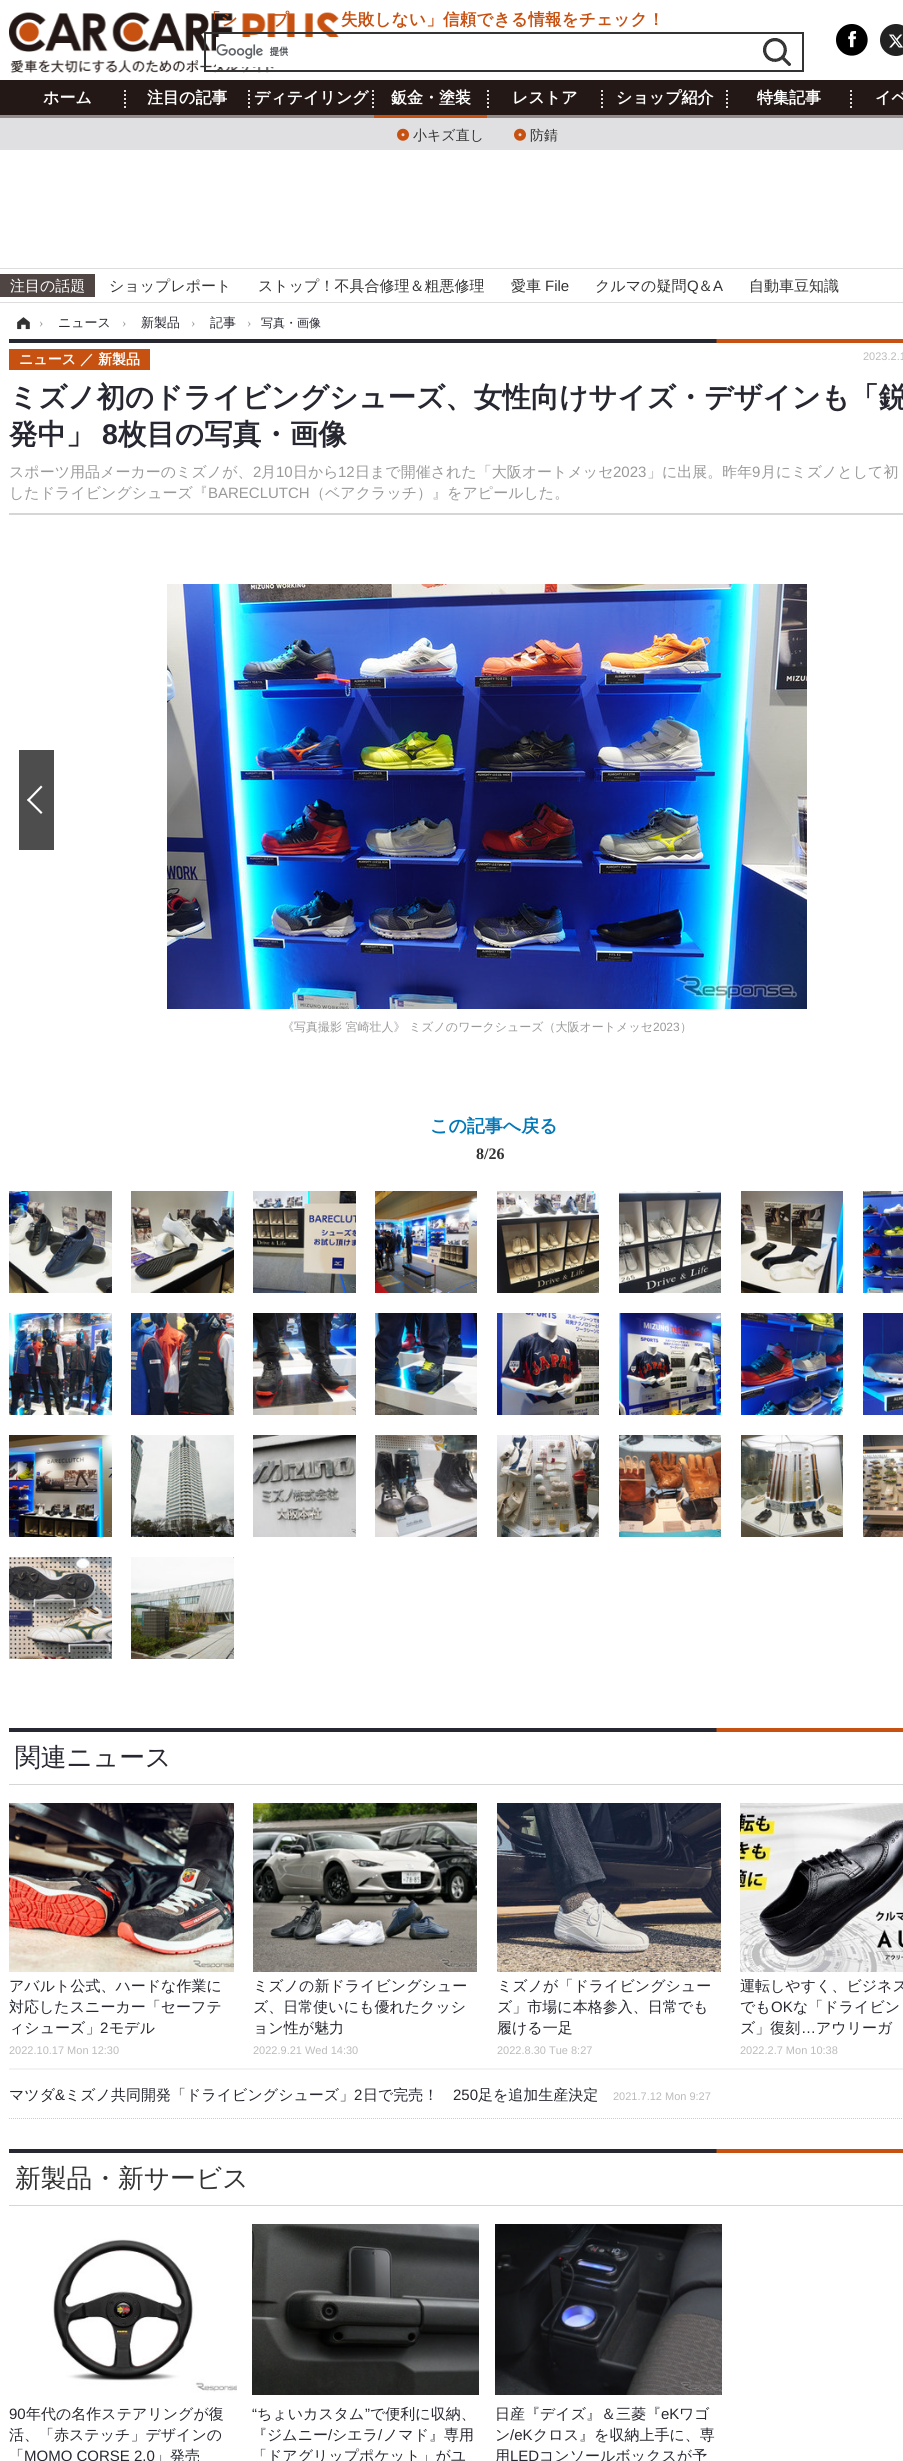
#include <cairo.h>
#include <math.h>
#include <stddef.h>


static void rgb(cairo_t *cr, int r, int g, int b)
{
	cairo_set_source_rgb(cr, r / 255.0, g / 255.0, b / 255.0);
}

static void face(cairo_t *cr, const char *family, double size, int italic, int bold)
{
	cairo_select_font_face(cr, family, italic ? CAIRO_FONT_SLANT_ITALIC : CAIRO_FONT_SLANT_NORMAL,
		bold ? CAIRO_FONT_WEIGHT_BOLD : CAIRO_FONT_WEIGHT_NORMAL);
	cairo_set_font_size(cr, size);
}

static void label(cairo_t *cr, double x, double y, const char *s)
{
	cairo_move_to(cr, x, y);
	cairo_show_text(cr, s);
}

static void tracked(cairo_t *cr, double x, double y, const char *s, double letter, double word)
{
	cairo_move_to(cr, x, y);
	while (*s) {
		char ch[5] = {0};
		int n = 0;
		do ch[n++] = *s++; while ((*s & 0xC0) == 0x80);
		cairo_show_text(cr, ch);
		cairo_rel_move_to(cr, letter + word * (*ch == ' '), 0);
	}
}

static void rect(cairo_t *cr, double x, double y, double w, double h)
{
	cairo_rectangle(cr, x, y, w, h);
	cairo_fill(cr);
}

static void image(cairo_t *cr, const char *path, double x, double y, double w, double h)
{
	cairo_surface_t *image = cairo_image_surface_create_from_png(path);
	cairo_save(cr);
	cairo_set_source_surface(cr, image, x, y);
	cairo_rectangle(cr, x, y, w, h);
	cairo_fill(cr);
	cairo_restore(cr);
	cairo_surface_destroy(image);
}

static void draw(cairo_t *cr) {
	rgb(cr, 255, 255, 255);
	cairo_paint(cr);
	image(cr, "image4.png", 9, 12, 330, 61);
	face(cr, "WenQuanYi Zen Hei", 16.5, 0, 1);
	rgb(cr, 199, 81, 17);
	tracked(cr, 204, 25, "「シ", 0.3, 0);
	tracked(cr, 272, 25, "プ", 0.3, 0);
	tracked(cr, 341, 25, "失敗しない」信頼できる情報をチェック！", 0.3, 0);
	cairo_rectangle(cr, 205, 33, 598, 38);
	rgb(cr, 51, 51, 51);
	cairo_stroke(cr);
	rgb(cr, 255, 255, 255);
	rect(cr, 216, 37, 123, 30);
	image(cr, "image0.png", 216, 44, 73, 15);
	image(cr, "image1.png", 763, 38, 28, 28);
	image(cr, "image2.png", 836, 24, 32, 32);
	rgb(cr, 34, 34, 34);
	cairo_arc(cr, 896, 40, 16, 0, 2 * M_PI);
	cairo_fill(cr);
	image(cr, "image3.png", 889, 34, 14, 14);
	image(cr, "image5.png", 0, 80, 903, 70);
	face(cr, "WenQuanYi Zen Hei", 16, 0, 1);
	rgb(cr, 255, 255, 255);
	label(cr, 43, 103, "ホーム");
	cairo_new_path(cr);
	cairo_move_to(cr, 125, 90);
	cairo_line_to(cr, 125, 108);
	rgb(cr, 224, 224, 226);
	cairo_set_dash(cr, (double[]){2, 2}, 2, 0);
	cairo_stroke(cr);
	rgb(cr, 255, 255, 255);
	label(cr, 147, 103, "注目の記事");
	cairo_new_path(cr);
	cairo_move_to(cr, 249, 90);
	cairo_line_to(cr, 249, 108);
	rgb(cr, 224, 224, 226);
	cairo_stroke(cr);
	rgb(cr, 255, 255, 255);
	label(cr, 254, 103, "ディテイリング");
	cairo_new_path(cr);
	cairo_move_to(cr, 373, 90);
	cairo_line_to(cr, 373, 108);
	rgb(cr, 224, 224, 226);
	cairo_stroke(cr);
	rgb(cr, 255, 255, 255);
	label(cr, 391, 103, "鈑金・塗装");
	rgb(cr, 199, 81, 17);
	rect(cr, 374, 115, 113, 3);
	image(cr, "image6.png", 397, 128, 12, 13);
	face(cr, "WenQuanYi Zen Hei Medium", 14, 0, 0);
	rgb(cr, 51, 51, 51);
	label(cr, 413, 140, "小キズ直し");
	image(cr, "image6.png", 514, 128, 12, 13);
	label(cr, 530, 140, "防錆");
	cairo_new_path(cr);
	cairo_move_to(cr, 602, 90);
	cairo_line_to(cr, 602, 108);
	rgb(cr, 224, 224, 226);
	cairo_stroke(cr);
	face(cr, "WenQuanYi Zen Hei", 16, 0, 1);
	rgb(cr, 255, 255, 255);
	label(cr, 616, 103, "ショップ紹介");
	cairo_new_path(cr);
	cairo_move_to(cr, 727, 90);
	cairo_line_to(cr, 727, 108);
	rgb(cr, 224, 224, 226);
	cairo_stroke(cr);
	rgb(cr, 255, 255, 255);
	label(cr, 757, 103, "特集記事");
	cairo_new_path(cr);
	cairo_move_to(cr, 488, 90);
	cairo_line_to(cr, 488, 108);
	rgb(cr, 224, 224, 226);
	cairo_stroke(cr);
	rgb(cr, 255, 255, 255);
	label(cr, 512, 103, "レストア");
	cairo_new_path(cr);
	cairo_move_to(cr, 851, 90);
	cairo_line_to(cr, 851, 108);
	rgb(cr, 224, 224, 226);
	cairo_stroke(cr);
	rgb(cr, 255, 255, 255);
	label(cr, 875, 103, "イベ");
	rgb(cr, 221, 221, 221);
	rect(cr, 0, 268, 903, 1);
	rect(cr, 0, 302, 903, 1);
	rgb(cr, 79, 70, 68);
	rect(cr, 0, 274, 95, 23);
	face(cr, "WenQuanYi Zen Hei Medium", 15, 0, 0);
	rgb(cr, 255, 255, 255);
	label(cr, 10, 291, "注目の話題");
	rgb(cr, 51, 51, 51);
	label(cr, 109, 291, "ショップレポート");
	label(cr, 258, 291, "ストップ！不具合修理＆粗悪修理");
	label(cr, 511, 291, "愛車");
	face(cr, "Liberation Sans", 15, 0, 0);
	label(cr, 545, 291, "File");
	face(cr, "WenQuanYi Zen Hei Medium", 15, 0, 0);
	label(cr, 595, 291, "クルマの疑問");
	face(cr, "Liberation Sans", 15, 0, 0);
	label(cr, 687, 291, "Q");
	face(cr, "WenQuanYi Zen Hei Medium", 15, 0, 0);
	label(cr, 698, 291, "＆");
	face(cr, "Liberation Sans", 15, 0, 0);
	label(cr, 713, 291, "A");
	face(cr, "WenQuanYi Zen Hei Medium", 15, 0, 0);
	label(cr, 749, 291, "自動車豆知識");
	image(cr, "image7.png", 17, 317, 13, 13);
	face(cr, "Liberation Serif", 13, 0, 0);
	rgb(cr, 153, 153, 153);
	label(cr, 39, 327, "›");
	face(cr, "WenQuanYi Zen Hei Medium", 13, 0, 0);
	rgb(cr, 38, 39, 48);
	label(cr, 58, 327, "ニュース");
	face(cr, "Liberation Serif", 13, 0, 0);
	rgb(cr, 153, 153, 153);
	label(cr, 122, 327, "›");
	face(cr, "WenQuanYi Zen Hei Medium", 13, 0, 0);
	rgb(cr, 38, 39, 48);
	label(cr, 141, 327, "新製品");
	face(cr, "Liberation Serif", 13, 0, 0);
	rgb(cr, 153, 153, 153);
	label(cr, 191, 327, "›");
	face(cr, "WenQuanYi Zen Hei Medium", 13, 0, 0);
	rgb(cr, 38, 39, 48);
	label(cr, 210, 327, "記事");
	face(cr, "Liberation Serif", 13, 0, 0);
	rgb(cr, 153, 153, 153);
	label(cr, 247, 327, "›");
	face(cr, "WenQuanYi Zen Hei Medium", 12, 0, 0);
	rgb(cr, 38, 39, 48);
	label(cr, 261, 327, "写真・画像");
	image(cr, "image8.png", 9, 339, 894, 4);
	rgb(cr, 214, 214, 214);
	rect(cr, 9, 513, 894, 2);
	rgb(cr, 199, 81, 17);
	rect(cr, 9, 349, 141, 21);
	face(cr, "WenQuanYi Zen Hei", 14, 0, 1);
	rgb(cr, 255, 255, 255);
	label(cr, 19, 364, "ニュース");
	label(cr, 80, 364, "／");
	label(cr, 98, 364, "新製品");
	face(cr, "Liberation Sans", 11, 0, 0);
	rgb(cr, 187, 187, 187);
	label(cr, 863, 360, "2023.2.1");
	face(cr, "WenQuanYi Zen Hei", 28.5, 0, 1);
	rgb(cr, 38, 39, 48);
	label(cr, 9, 407, "ミズノ初のドライビングシューズ、女性向けサイズ・デザインも「鋭");
	label(cr, 9, 444, "発中」");
	face(cr, "Liberation Sans", 28.5, 0, 1);
	label(cr, 102, 444, "8");
	face(cr, "WenQuanYi Zen Hei", 28.5, 0, 1);
	label(cr, 118, 444, "枚目の写真・画像");
	face(cr, "WenQuanYi Zen Hei Medium", 15, 0, 0);
	rgb(cr, 153, 153, 153);
	label(cr, 9, 477, "スポーツ用品メーカーのミズノが、");
	face(cr, "Liberation Sans", 15, 0, 0);
	label(cr, 253, 477, "2");
	face(cr, "WenQuanYi Zen Hei Medium", 15, 0, 0);
	label(cr, 261, 477, "月");
	face(cr, "Liberation Sans", 15, 0, 0);
	label(cr, 276, 477, "10");
	face(cr, "WenQuanYi Zen Hei Medium", 15, 0, 0);
	label(cr, 293, 477, "日から");
	face(cr, "Liberation Sans", 15, 0, 0);
	label(cr, 338, 477, "12");
	face(cr, "WenQuanYi Zen Hei Medium", 15, 0, 0);
	label(cr, 355, 477, "日まで開催された「大阪オートメッセ");
	face(cr, "Liberation Sans", 15, 0, 0);
	label(cr, 613, 477, "2023");
	face(cr, "WenQuanYi Zen Hei Medium", 15, 0, 0);
	label(cr, 647, 477, "」に出展。昨年");
	face(cr, "Liberation Sans", 15, 0, 0);
	label(cr, 752, 477, "9");
	face(cr, "WenQuanYi Zen Hei Medium", 15, 0, 0);
	label(cr, 761, 477, "月にミズノとして初");
	label(cr, 9, 498, "したドライビングシューズ『");
	face(cr, "Liberation Sans", 15, 0, 0);
	label(cr, 208, 498, "BARECLUTCH");
	face(cr, "WenQuanYi Zen Hei Medium", 15, 0, 0);
	label(cr, 310, 498, "（ベアクラッチ）』をアピールした。");
	image(cr, "image9.png", 167, 584, 640, 425);
	face(cr, "WenQuanYi Zen Hei Medium", 12, 0, 0);
	label(cr, 282, 1031, "《写真撮影 宮崎壮人》");
	label(cr, 409, 1031, "ミズノのワークシューズ（大阪オートメッセ");
	face(cr, "Liberation Sans", 12, 0, 0);
	label(cr, 653, 1031, "2023");
	face(cr, "WenQuanYi Zen Hei Medium", 12, 0, 0);
	label(cr, 680, 1031, "）");
	rgb(cr, 77, 77, 77);
	rect(cr, 19, 750, 35, 100);
	rgb(cr, 255, 255, 255);
	cairo_new_path(cr);
	cairo_move_to(cr, 41, 814);
	cairo_line_to(cr, 27, 800);
	cairo_line_to(cr, 28.5, 798.5);
	cairo_line_to(cr, 42.5, 812.5);
	cairo_close_path(cr);
	cairo_fill(cr);
	cairo_new_path(cr);
	cairo_move_to(cr, 28.5, 801.5);
	cairo_line_to(cr, 27, 800);
	cairo_line_to(cr, 41, 785.5);
	cairo_line_to(cr, 42.5, 787);
	cairo_close_path(cr);
	cairo_fill(cr);
	face(cr, "WenQuanYi Zen Hei", 18, 0, 1);
	rgb(cr, 0, 119, 185);
	label(cr, 430, 1132, "この記事へ戻る");
	face(cr, "Liberation Serif", 16, 0, 1);
	rgb(cr, 51, 51, 51);
	label(cr, 476, 1159, "8/26");
	image(cr, "image10.png", 9, 1191, 103, 102);
	image(cr, "image11.png", 131, 1191, 103, 102);
	image(cr, "image12.png", 253, 1191, 103, 102);
	image(cr, "image13.png", 375, 1191, 102, 102);
	image(cr, "image14.png", 497, 1191, 102, 102);
	image(cr, "image15.png", 619, 1191, 102, 102);
	image(cr, "image16.png", 741, 1191, 102, 102);
	image(cr, "image17.png", 863, 1191, 40, 102);
	image(cr, "image18.png", 9, 1313, 103, 102);
	image(cr, "image19.png", 131, 1313, 103, 102);
	image(cr, "image20.png", 253, 1313, 103, 102);
	image(cr, "image21.png", 375, 1313, 102, 102);
	image(cr, "image22.png", 497, 1313, 102, 102);
	image(cr, "image23.png", 619, 1313, 102, 102);
	image(cr, "image24.png", 741, 1313, 102, 102);
	image(cr, "image25.png", 863, 1313, 40, 102);
	image(cr, "image26.png", 9, 1435, 103, 102);
	image(cr, "image27.png", 131, 1435, 103, 102);
	image(cr, "image28.png", 253, 1435, 103, 102);
	image(cr, "image29.png", 375, 1435, 102, 102);
	image(cr, "image30.png", 497, 1435, 102, 102);
	image(cr, "image31.png", 619, 1435, 102, 102);
	image(cr, "image32.png", 741, 1435, 102, 102);
	image(cr, "image33.png", 863, 1435, 40, 102);
	image(cr, "image34.png", 9, 1557, 103, 102);
	image(cr, "image35.png", 131, 1557, 103, 102);
	image(cr, "image8.png", 9, 1728, 894, 4);
	rgb(cr, 214, 214, 214);
	rect(cr, 9, 1784, 894, 1);
	face(cr, "WenQuanYi Zen Hei Medium", 25.75, 0, 0);
	rgb(cr, 38, 39, 48);
	label(cr, 15, 1766, "関連ニュース");
	rgb(cr, 243, 243, 243);
	rect(cr, 9, 2068, 894, 2);
	image(cr, "image36.png", 9, 1803, 225, 169);
	face(cr, "WenQuanYi Zen Hei Medium", 15, 0, 0);
	rgb(cr, 38, 39, 48);
	label(cr, 9, 1991, "アバルト公式、ハードな作業に");
	label(cr, 9, 2012, "対応したスニーカー「セーフテ");
	label(cr, 9, 2033, "ィシューズ」");
	face(cr, "Liberation Sans", 15, 0, 0);
	label(cr, 100, 2033, "2");
	face(cr, "WenQuanYi Zen Hei Medium", 15, 0, 0);
	label(cr, 109, 2033, "モデル");
	face(cr, "Liberation Sans", 11, 0, 0);
	rgb(cr, 187, 187, 187);
	label(cr, 9, 2054, "2022.10.17 Mon 12:30");
	image(cr, "image37.png", 253, 1803, 224, 169);
	face(cr, "WenQuanYi Zen Hei Medium", 15, 0, 0);
	rgb(cr, 38, 39, 48);
	label(cr, 253, 1991, "ミズノの新ドライビングシュー");
	label(cr, 253, 2012, "ズ、日常使いにも優れたクッシ");
	label(cr, 253, 2033, "ョン性が魅力");
	face(cr, "Liberation Sans", 11, 0, 0);
	rgb(cr, 187, 187, 187);
	label(cr, 253, 2054, "2022.9.21 Wed 14:30");
	image(cr, "image38.png", 497, 1803, 224, 169);
	face(cr, "WenQuanYi Zen Hei Medium", 15, 0, 0);
	rgb(cr, 38, 39, 48);
	label(cr, 497, 1991, "ミズノが「ドライビングシュー");
	label(cr, 497, 2012, "ズ」市場に本格参入、日常でも");
	label(cr, 497, 2033, "履ける一足");
	face(cr, "Liberation Sans", 11, 0, 0);
	rgb(cr, 187, 187, 187);
	label(cr, 497, 2054, "2022.8.30 Tue 8:27");
	image(cr, "image39.png", 740, 1803, 163, 169);
	face(cr, "WenQuanYi Zen Hei Medium", 15, 0, 0);
	rgb(cr, 38, 39, 48);
	label(cr, 740, 1991, "運転しやすく、ビジネス");
	label(cr, 740, 2012, "でも");
	face(cr, "Liberation Sans", 15, 0, 0);
	label(cr, 771, 2012, "OK");
	face(cr, "WenQuanYi Zen Hei Medium", 15, 0, 0);
	label(cr, 793, 2012, "な「ドライビン");
	label(cr, 740, 2033, "ズ」復刻");
	face(cr, "Liberation Sans", 15, 0, 0);
	label(cr, 801, 2033, "…");
	face(cr, "WenQuanYi Zen Hei Medium", 15, 0, 0);
	label(cr, 816, 2033, "アウリーガ");
	face(cr, "Liberation Sans", 11, 0, 0);
	rgb(cr, 187, 187, 187);
	label(cr, 740, 2054, "2022.2.7 Mon 10:38");
	cairo_new_path(cr);
	cairo_move_to(cr, 9, 2118.5);
	cairo_line_to(cr, 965, 2118.5);
	rgb(cr, 204, 204, 204);
	cairo_set_line_width(cr, 1);
	cairo_set_dash(cr, (double[]){1, 1}, 2, 0);
	cairo_stroke(cr);
	face(cr, "WenQuanYi Zen Hei Medium", 15, 0, 0);
	rgb(cr, 38, 39, 48);
	label(cr, 9, 2100, "マツダ");
	face(cr, "Liberation Sans", 15, 0, 0);
	label(cr, 55, 2100, "&");
	face(cr, "WenQuanYi Zen Hei Medium", 15, 0, 0);
	label(cr, 65, 2100, "ミズノ共同開発「ドライビングシューズ」");
	face(cr, "Liberation Sans", 15, 0, 0);
	label(cr, 354, 2100, "2");
	face(cr, "WenQuanYi Zen Hei Medium", 15, 0, 0);
	label(cr, 363, 2100, "日で完売！");
	face(cr, "Liberation Sans", 15, 0, 0);
	label(cr, 453, 2100, "250");
	face(cr, "WenQuanYi Zen Hei Medium", 15, 0, 0);
	label(cr, 478, 2100, "足を追加生産決定");
	face(cr, "Liberation Sans", 11, 0, 0);
	rgb(cr, 187, 187, 187);
	label(cr, 613, 2100, "2021.7.12 Mon 9:27");
	image(cr, "image8.png", 9, 2149, 894, 4);
	rgb(cr, 214, 214, 214);
	rect(cr, 9, 2205, 894, 1);
	face(cr, "WenQuanYi Zen Hei Medium", 25.75, 0, 0);
	rgb(cr, 51, 51, 51);
	label(cr, 15, 2187, "新製品・新サービス");
	image(cr, "image40.png", 9, 2224, 228, 171);
	face(cr, "Liberation Sans", 15, 0, 0);
	rgb(cr, 38, 39, 48);
	label(cr, 9, 2419, "90");
	face(cr, "WenQuanYi Zen Hei Medium", 15, 0, 0);
	label(cr, 26, 2419, "年代の名作ステアリングが復");
	label(cr, 9, 2440, "活、「赤ステッチ」デザインの");
	label(cr, 9, 2461, "「");
	face(cr, "Liberation Sans", 15, 0, 0);
	label(cr, 24, 2461, "MOMO CORSE 2.0");
	face(cr, "WenQuanYi Zen Hei Medium", 15, 0, 0);
	label(cr, 155, 2461, "」発売");
	image(cr, "image41.png", 252, 2224, 227, 171);
	face(cr, "Liberation Sans", 15, 0, 0);
	label(cr, 252, 2419, "“");
	face(cr, "WenQuanYi Zen Hei Medium", 15, 0, 0);
	label(cr, 257, 2419, "ちょいカスタム");
	face(cr, "Liberation Sans", 15, 0, 0);
	label(cr, 365, 2419, "”");
	face(cr, "WenQuanYi Zen Hei Medium", 15, 0, 0);
	label(cr, 370, 2419, "で便利に収納、");
	label(cr, 252, 2440, "『ジムニー");
	face(cr, "Liberation Sans", 15, 0, 0);
	label(cr, 328, 2440, "/");
	face(cr, "WenQuanYi Zen Hei Medium", 15, 0, 0);
	label(cr, 332, 2440, "シエラ");
	face(cr, "Liberation Sans", 15, 0, 0);
	label(cr, 378, 2440, "/");
	face(cr, "WenQuanYi Zen Hei Medium", 15, 0, 0);
	label(cr, 383, 2440, "ノマド』専用");
	label(cr, 252, 2461, "「ドアグリップポケット」がユ");
	image(cr, "image42.png", 495, 2224, 227, 171);
	image(cr, "image43.png", 498, 2231, 224, 164);
	label(cr, 495, 2419, "日産『デイズ』＆三菱『");
	face(cr, "Liberation Sans", 15, 0, 0);
	label(cr, 661, 2419, "eK");
	face(cr, "WenQuanYi Zen Hei Medium", 15, 0, 0);
	label(cr, 679, 2419, "ワゴ");
	label(cr, 495, 2440, "ン");
	face(cr, "Liberation Sans", 15, 0, 0);
	label(cr, 510, 2440, "/eK");
	face(cr, "WenQuanYi Zen Hei Medium", 15, 0, 0);
	label(cr, 533, 2440, "クロス』を収納上手に、専");
	label(cr, 495, 2461, "用");
	face(cr, "Liberation Sans", 15, 0, 0);
	label(cr, 510, 2461, "LED");
	face(cr, "WenQuanYi Zen Hei Medium", 15, 0, 0);
	label(cr, 539, 2461, "コンソールボックスが予");
}

int main(void) {
	cairo_surface_t *surface = cairo_image_surface_create(CAIRO_FORMAT_RGB24, 903, 2461);
	cairo_t *cr = cairo_create(surface);
	cairo_font_options_t *options = cairo_font_options_create();
	cairo_font_options_set_hint_metrics(options, CAIRO_HINT_METRICS_OFF);
	cairo_font_options_set_hint_style(options, CAIRO_HINT_STYLE_NONE);
	cairo_set_font_options(cr, options);
	cairo_set_miter_limit(cr, 4);
	draw(cr);
	cairo_surface_write_to_png(surface, "render.png");
	cairo_font_options_destroy(options);
	cairo_destroy(cr);
	cairo_surface_destroy(surface);
	return 0;
}
